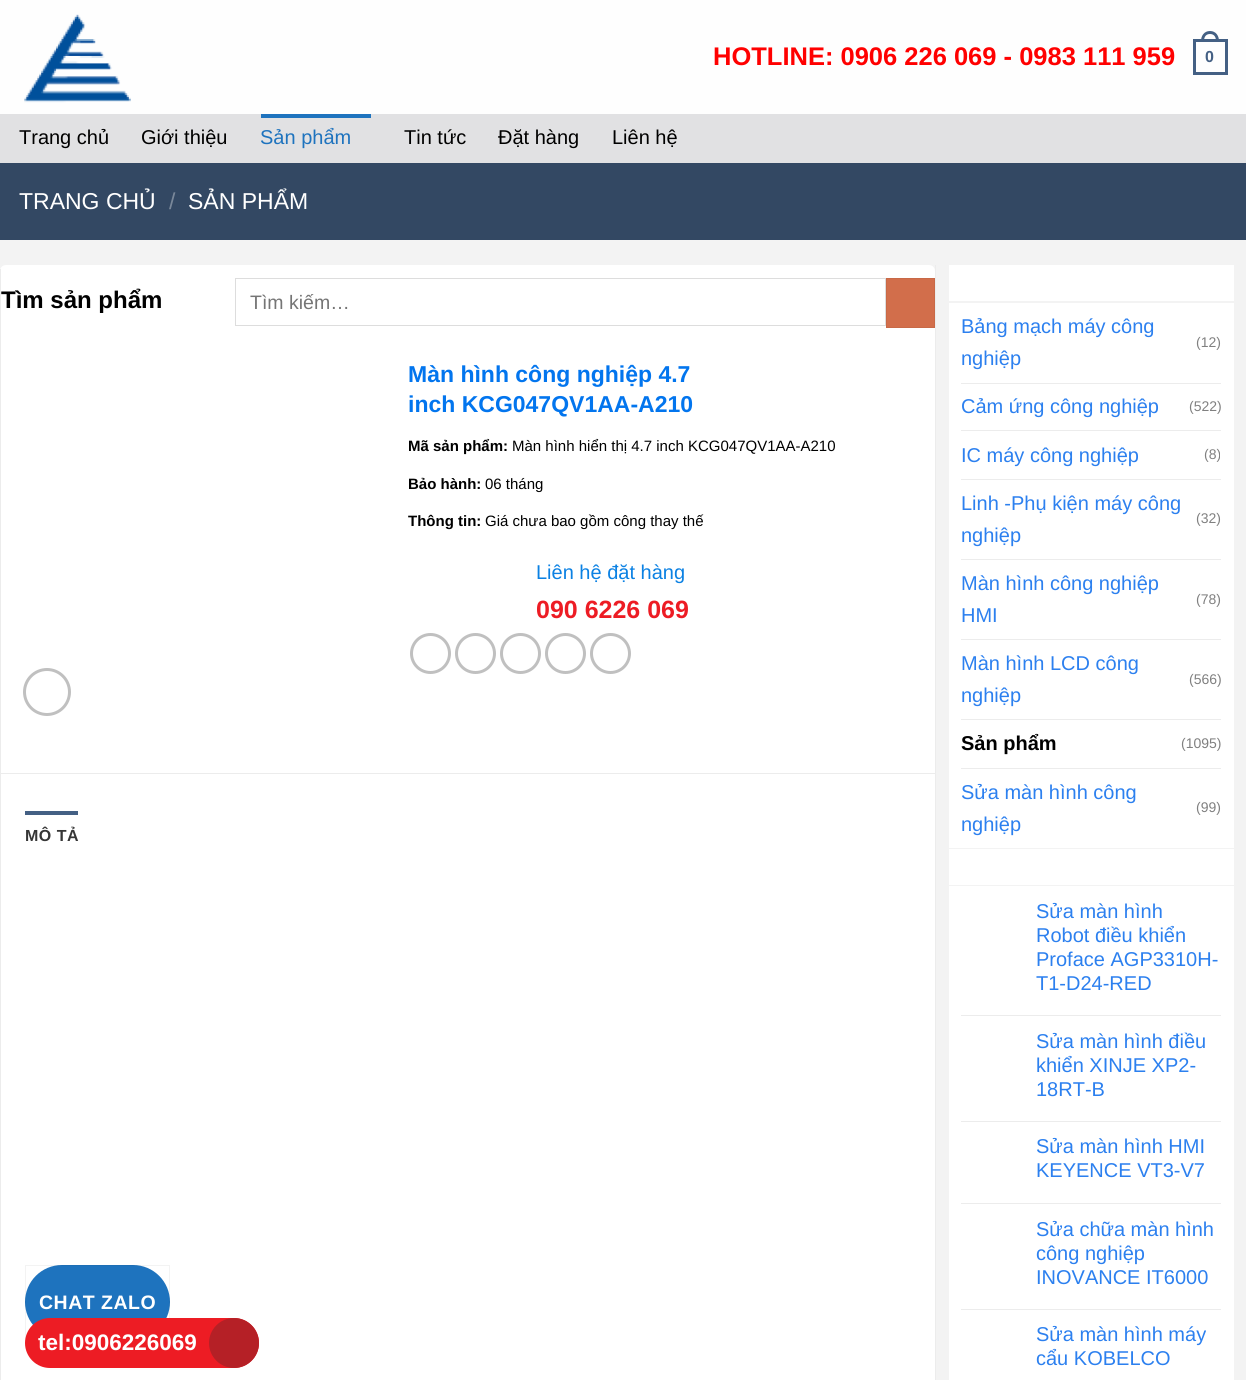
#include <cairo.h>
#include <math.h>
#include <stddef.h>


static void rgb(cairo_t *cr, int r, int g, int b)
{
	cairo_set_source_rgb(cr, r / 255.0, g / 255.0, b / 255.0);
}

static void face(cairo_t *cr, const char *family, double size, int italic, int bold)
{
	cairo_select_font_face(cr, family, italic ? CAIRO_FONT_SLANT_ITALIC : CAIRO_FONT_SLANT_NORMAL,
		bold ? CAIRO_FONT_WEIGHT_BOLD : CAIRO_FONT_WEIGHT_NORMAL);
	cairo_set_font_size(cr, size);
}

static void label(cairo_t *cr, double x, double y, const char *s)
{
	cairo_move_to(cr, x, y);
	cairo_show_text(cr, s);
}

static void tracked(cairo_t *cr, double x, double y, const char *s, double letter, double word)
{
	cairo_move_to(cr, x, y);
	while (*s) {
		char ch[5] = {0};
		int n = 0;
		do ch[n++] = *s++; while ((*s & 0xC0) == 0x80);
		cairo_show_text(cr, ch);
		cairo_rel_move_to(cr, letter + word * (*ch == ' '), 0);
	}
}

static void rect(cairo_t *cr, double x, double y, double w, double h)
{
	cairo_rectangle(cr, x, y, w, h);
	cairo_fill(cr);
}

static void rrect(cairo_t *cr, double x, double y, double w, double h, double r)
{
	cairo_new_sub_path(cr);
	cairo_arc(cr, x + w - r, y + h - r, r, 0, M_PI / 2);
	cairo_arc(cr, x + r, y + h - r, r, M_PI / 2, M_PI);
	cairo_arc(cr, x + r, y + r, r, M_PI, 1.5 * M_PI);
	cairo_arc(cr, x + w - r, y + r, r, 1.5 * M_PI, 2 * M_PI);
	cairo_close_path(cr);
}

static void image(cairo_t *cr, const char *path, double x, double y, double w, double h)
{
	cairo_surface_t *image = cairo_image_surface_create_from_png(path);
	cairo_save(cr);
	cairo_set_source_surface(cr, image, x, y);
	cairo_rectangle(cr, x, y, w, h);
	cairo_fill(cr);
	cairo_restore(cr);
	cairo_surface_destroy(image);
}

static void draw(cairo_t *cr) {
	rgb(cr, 243, 243, 243);
	cairo_paint(cr);
	rgb(cr, 254, 254, 254);
	rect(cr, 0, 0, 1246, 114);
	image(cr, "image0.png", 24, 14, 107, 89);
	face(cr, "Liberation Sans", 25.5, 0, 1);
	rgb(cr, 255, 0, 0);
	label(cr, 713, 65, "HOTLINE: 0906 226 069 - 0983 111 959");
	cairo_rectangle(cr, 1194.5, 40.5, 32, 33);
	rgb(cr, 68, 96, 132);
	cairo_set_line_width(cr, 3);
	cairo_stroke(cr);
	cairo_set_fill_rule(cr, CAIRO_FILL_RULE_EVEN_ODD);
	cairo_new_path(cr);
	cairo_move_to(cr, 1210, 31);
	cairo_curve_to(cr, 1216, 31, 1219, 36, 1219, 41);
	cairo_line_to(cr, 1201, 41);
	cairo_curve_to(cr, 1201, 36, 1204, 31, 1210, 31);
	cairo_close_path(cr);
	cairo_move_to(cr, 1210, 34);
	cairo_curve_to(cr, 1214.5, 34, 1216, 37.5, 1216, 41);
	cairo_line_to(cr, 1204, 41);
	cairo_curve_to(cr, 1204, 37.5, 1205.5, 34, 1210, 34);
	cairo_close_path(cr);
	cairo_fill(cr);
	face(cr, "Liberation Sans", 16, 0, 1);
	tracked(cr, 1205, 62, "0", 0.5, 0);
	rgb(cr, 225, 225, 227);
	rect(cr, 0, 114, 1246, 49);
	face(cr, "Liberation Sans", 20, 0, 0);
	rgb(cr, 0, 0, 0);
	label(cr, 19, 144, "Trang chủ");
	label(cr, 141, 144, "Giới thiệu");
	rgb(cr, 30, 115, 190);
	rect(cr, 261, 114, 110, 4);
	label(cr, 260, 144, "Sản phẩm");
	rgb(cr, 0, 0, 0);
	label(cr, 404, 144, "Tin tức");
	label(cr, 498, 144, "Đặt hàng");
	label(cr, 612, 144, "Liên hệ");
	rgb(cr, 51, 72, 99);
	rect(cr, 0, 163, 1246, 77);
	face(cr, "Liberation Sans", 23, 0, 0);
	rgb(cr, 255, 255, 255);
	label(cr, 19, 209, "TRANG CHỦ");
	rgb(cr, 122, 136, 154);
	label(cr, 169, 209, "/");
	rgb(cr, 255, 255, 255);
	label(cr, 188, 209, "SẢN PHẨM");
	rrect(cr, 0, 265, 935, 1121, 6);
	cairo_fill(cr);
	rgb(cr, 236, 236, 236);
	rect(cr, 0, 269, 1, 1111);
	face(cr, "Liberation Sans", 24, 0, 1);
	rgb(cr, 0, 0, 0);
	label(cr, 1, 308, "Tìm sản phẩm");
	cairo_rectangle(cr, 235.5, 278.5, 650, 47);
	rgb(cr, 221, 221, 221);
	cairo_set_line_width(cr, 1);
	cairo_stroke(cr);
	face(cr, "Liberation Sans", 19.5, 0, 0);
	rgb(cr, 117, 117, 117);
	label(cr, 250, 309, "Tìm kiếm…");
	rgb(cr, 210, 110, 75);
	cairo_rectangle(cr, 886.5, 278.5, 48, 49);
	cairo_fill_preserve(cr);
	rgb(cr, 200, 105, 71);
	cairo_stroke(cr);
	face(cr, "Liberation Sans", 23, 0, 1);
	rgb(cr, 2, 117, 238);
	label(cr, 408, 382, "Màn hình công nghiệp 4.7");
	label(cr, 408, 412, "inch KCG047QV1AA-A210");
	face(cr, "Liberation Sans", 15, 0, 1);
	rgb(cr, 0, 0, 0);
	label(cr, 408, 451, "Mã sản phẩm:");
	face(cr, "Liberation Sans", 15, 0, 0);
	label(cr, 512, 451, "Màn hình hiển thị 4.7 inch KCG047QV1AA-A210");
	face(cr, "Liberation Sans", 15, 0, 1);
	label(cr, 408, 489, "Bảo hành:");
	face(cr, "Liberation Sans", 15, 0, 0);
	label(cr, 485, 489, "06 tháng");
	face(cr, "Liberation Sans", 15, 0, 1);
	label(cr, 408, 526, "Thông tin:");
	face(cr, "Liberation Sans", 15, 0, 0);
	label(cr, 485, 526, "Giá chưa bao gồm công thay thế");
	face(cr, "Liberation Sans", 20, 0, 0);
	rgb(cr, 11, 129, 227);
	label(cr, 536, 579, "Liên hệ đặt hàng");
	face(cr, "Liberation Sans", 25, 0, 1);
	rgb(cr, 237, 28, 36);
	label(cr, 536, 618, "090 6226 069");
	cairo_new_path(cr);
	cairo_arc(cr, 430.5, 653.5, 19, 0, 2 * M_PI);
	rgb(cr, 192, 192, 192);
	cairo_set_line_width(cr, 3);
	cairo_stroke(cr);
	cairo_arc(cr, 475.5, 653.5, 19, 0, 2 * M_PI);
	cairo_stroke(cr);
	cairo_arc(cr, 520.5, 653.5, 19, 0, 2 * M_PI);
	cairo_stroke(cr);
	cairo_arc(cr, 565.5, 653.5, 19, 0, 2 * M_PI);
	cairo_stroke(cr);
	cairo_arc(cr, 610.5, 653.5, 19, 0, 2 * M_PI);
	cairo_stroke(cr);
	cairo_arc(cr, 47, 692, 22.5, 0, 2 * M_PI);
	cairo_stroke(cr);
	rgb(cr, 236, 236, 236);
	rect(cr, 1, 773, 934, 1);
	rgb(cr, 68, 96, 132);
	rect(cr, 25, 811, 53, 4);
	face(cr, "Liberation Sans", 16, 0, 1);
	rgb(cr, 54, 54, 54);
	tracked(cr, 25, 841, "MÔ TẢ", 0.5, 0);
	rgb(cr, 236, 236, 236);
	rect(cr, 935, 265, 1, 1115);
	rgb(cr, 255, 255, 255);
	rect(cr, 949, 265, 285, 36);
	rect(cr, 949, 303, 285, 545);
	face(cr, "Liberation Sans", 20, 0, 0);
	rgb(cr, 44, 128, 239);
	label(cr, 961, 333, "Bảng mạch máy công");
	label(cr, 961, 365, "nghiệp");
	face(cr, "Liberation Sans", 14, 0, 0);
	rgb(cr, 128, 128, 128);
	label(cr, 1196, 347, "(12)");
	rgb(cr, 236, 236, 236);
	rect(cr, 961, 383, 260, 1);
	face(cr, "Liberation Sans", 20, 0, 0);
	rgb(cr, 44, 128, 239);
	label(cr, 961, 413, "Cảm ứng công nghiệp");
	face(cr, "Liberation Sans", 14, 0, 0);
	rgb(cr, 128, 128, 128);
	label(cr, 1189, 411, "(522)");
	rgb(cr, 236, 236, 236);
	rect(cr, 961, 430, 260, 1);
	face(cr, "Liberation Sans", 20, 0, 0);
	rgb(cr, 44, 128, 239);
	label(cr, 961, 462, "IC máy công nghiệp");
	face(cr, "Liberation Sans", 14, 0, 0);
	rgb(cr, 128, 128, 128);
	label(cr, 1204, 459, "(8)");
	rgb(cr, 236, 236, 236);
	rect(cr, 961, 479, 260, 1);
	face(cr, "Liberation Sans", 20, 0, 0);
	rgb(cr, 44, 128, 239);
	label(cr, 961, 510, "Linh -Phụ kiện máy công");
	label(cr, 961, 542, "nghiệp");
	face(cr, "Liberation Sans", 14, 0, 0);
	rgb(cr, 128, 128, 128);
	label(cr, 1196, 523, "(32)");
	rgb(cr, 236, 236, 236);
	rect(cr, 961, 559, 260, 1);
	face(cr, "Liberation Sans", 20, 0, 0);
	rgb(cr, 44, 128, 239);
	label(cr, 961, 590, "Màn hình công nghiệp");
	label(cr, 961, 622, "HMI");
	face(cr, "Liberation Sans", 14, 0, 0);
	rgb(cr, 128, 128, 128);
	label(cr, 1196, 604, "(78)");
	rgb(cr, 236, 236, 236);
	rect(cr, 961, 639, 260, 1);
	face(cr, "Liberation Sans", 20, 0, 0);
	rgb(cr, 44, 128, 239);
	label(cr, 961, 670, "Màn hình LCD công");
	label(cr, 961, 702, "nghiệp");
	face(cr, "Liberation Sans", 14, 0, 0);
	rgb(cr, 128, 128, 128);
	label(cr, 1189, 684, "(566)");
	rgb(cr, 236, 236, 236);
	rect(cr, 961, 719, 260, 1);
	face(cr, "Liberation Sans", 20, 0, 1);
	rgb(cr, 0, 0, 0);
	label(cr, 961, 750, "Sản phẩm");
	face(cr, "Liberation Sans", 14, 0, 0);
	rgb(cr, 128, 128, 128);
	label(cr, 1181, 748, "(1095)");
	rgb(cr, 236, 236, 236);
	rect(cr, 961, 768, 260, 1);
	face(cr, "Liberation Sans", 20, 0, 0);
	rgb(cr, 44, 128, 239);
	label(cr, 961, 799, "Sửa màn hình công");
	label(cr, 961, 831, "nghiệp");
	face(cr, "Liberation Sans", 14, 0, 0);
	rgb(cr, 128, 128, 128);
	label(cr, 1196, 812, "(99)");
	rgb(cr, 255, 255, 255);
	rect(cr, 949, 849, 285, 36);
	rect(cr, 949, 886, 285, 494);
	face(cr, "Liberation Sans", 20, 0, 0);
	rgb(cr, 44, 128, 239);
	label(cr, 1036, 918, "Sửa màn hình");
	label(cr, 1036, 942, "Robot điều khiển");
	label(cr, 1036, 966, "Proface AGP3310H-");
	label(cr, 1036, 990, "T1-D24-RED");
	rgb(cr, 236, 236, 236);
	rect(cr, 961, 1015, 260, 1);
	rgb(cr, 44, 128, 239);
	label(cr, 1036, 1048, "Sửa màn hình điều");
	label(cr, 1036, 1072, "khiển XINJE XP2-");
	label(cr, 1036, 1096, "18RT-B");
	rgb(cr, 236, 236, 236);
	rect(cr, 961, 1121, 260, 1);
	rgb(cr, 44, 128, 239);
	label(cr, 1036, 1153, "Sửa màn hình HMI");
	label(cr, 1036, 1177, "KEYENCE VT3-V7");
	rgb(cr, 236, 236, 236);
	rect(cr, 961, 1203, 260, 1);
	rgb(cr, 44, 128, 239);
	label(cr, 1036, 1236, "Sửa chữa màn hình");
	label(cr, 1036, 1260, "công nghiệp");
	label(cr, 1036, 1284, "INOVANCE IT6000");
	rgb(cr, 236, 236, 236);
	rect(cr, 961, 1309, 260, 1);
	rgb(cr, 44, 128, 239);
	label(cr, 1036, 1341, "Sửa màn hình máy");
	label(cr, 1036, 1365, "cẩu KOBELCO");
	rgb(cr, 30, 115, 190);
	rrect(cr, 25, 1265, 145, 74, 37);
	cairo_fill(cr);
	cairo_rectangle(cr, 25.5, 1265.5, 144, 73);
	cairo_set_source_rgba(cr, 0, 0, 0, 0.05);
	cairo_set_line_width(cr, 1);
	cairo_stroke(cr);
	face(cr, "Liberation Sans", 19.5, 0, 1);
	rgb(cr, 255, 255, 255);
	tracked(cr, 39, 1309, "CHAT ZALO", 0.5, 0);
	rgb(cr, 237, 28, 36);
	rrect(cr, 25, 1318, 234, 50, 25);
	cairo_fill(cr);
	face(cr, "Liberation Sans", 22.5, 0, 1);
	rgb(cr, 255, 255, 255);
	label(cr, 38, 1350, "tel:0906226069");
	rgb(cr, 181, 32, 38);
	cairo_new_path(cr);
	cairo_arc(cr, 234, 1343, 25, 0, 2 * M_PI);
	cairo_fill(cr);
}

int main(void) {
	cairo_surface_t *surface = cairo_image_surface_create(CAIRO_FORMAT_RGB24, 1246, 1380);
	cairo_t *cr = cairo_create(surface);
	cairo_font_options_t *options = cairo_font_options_create();
	cairo_font_options_set_hint_metrics(options, CAIRO_HINT_METRICS_OFF);
	cairo_font_options_set_hint_style(options, CAIRO_HINT_STYLE_NONE);
	cairo_set_font_options(cr, options);
	cairo_set_miter_limit(cr, 4);
	draw(cr);
	cairo_surface_write_to_png(surface, "render.png");
	cairo_font_options_destroy(options);
	cairo_destroy(cr);
	cairo_surface_destroy(surface);
	return 0;
}
